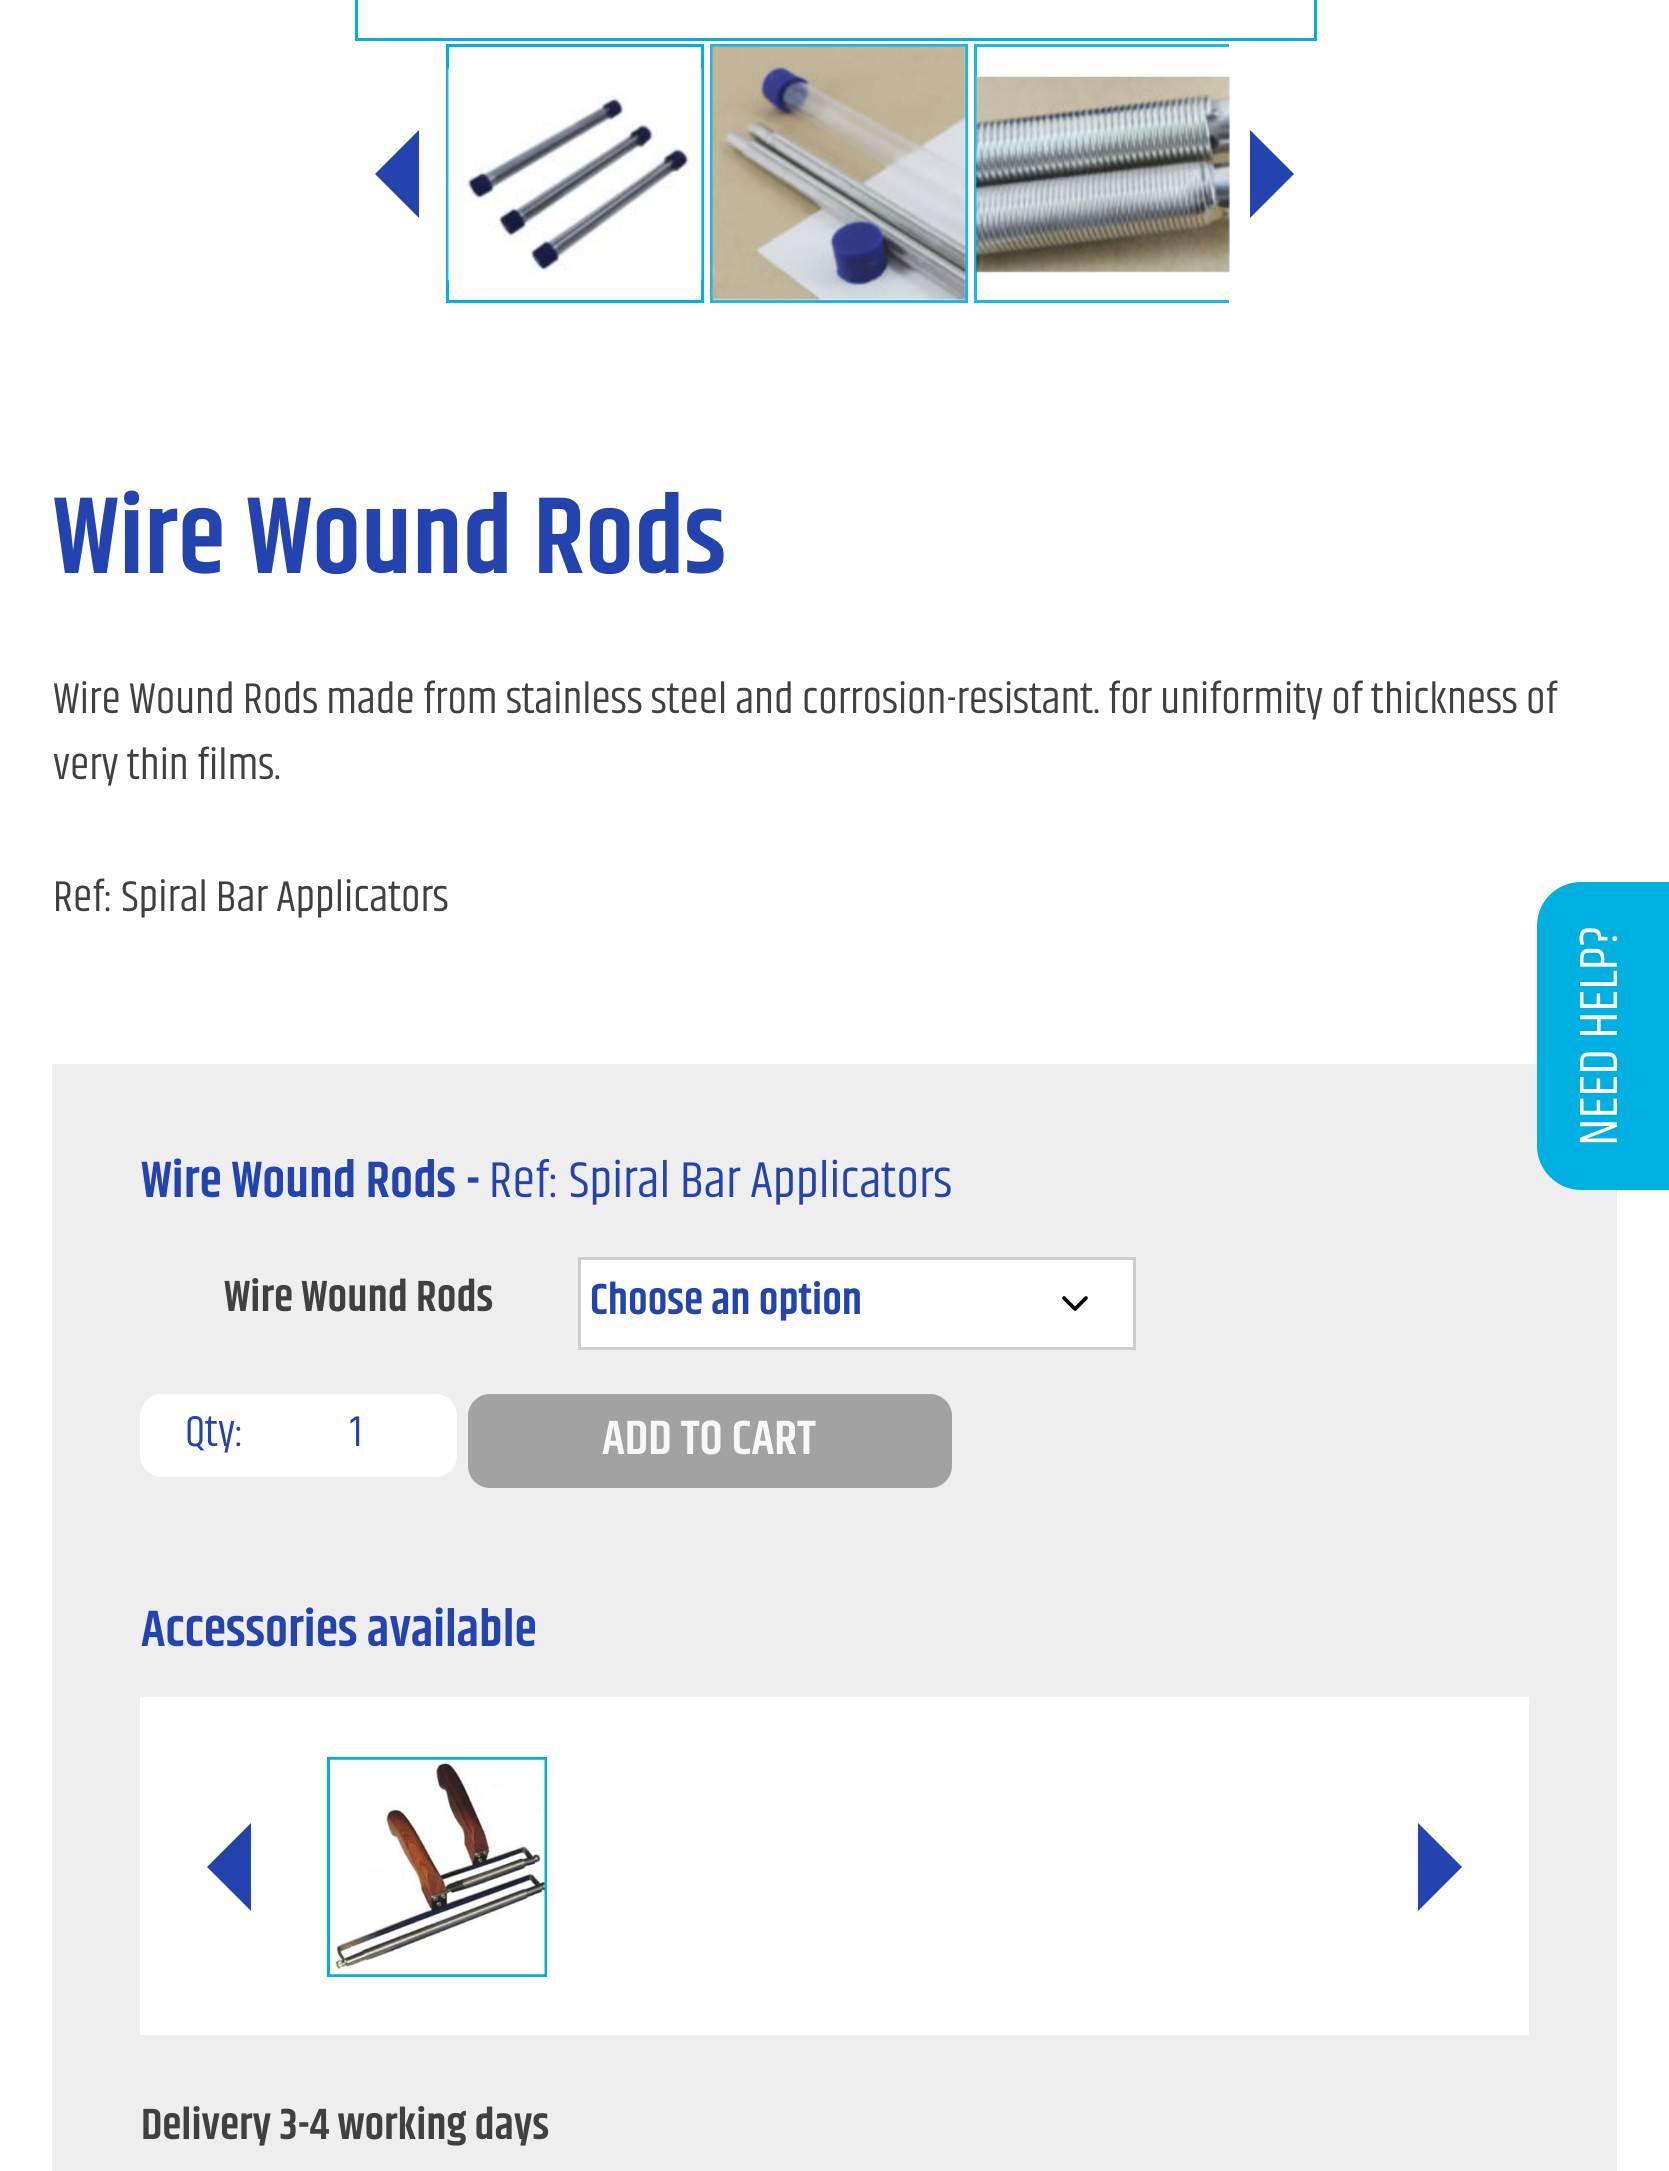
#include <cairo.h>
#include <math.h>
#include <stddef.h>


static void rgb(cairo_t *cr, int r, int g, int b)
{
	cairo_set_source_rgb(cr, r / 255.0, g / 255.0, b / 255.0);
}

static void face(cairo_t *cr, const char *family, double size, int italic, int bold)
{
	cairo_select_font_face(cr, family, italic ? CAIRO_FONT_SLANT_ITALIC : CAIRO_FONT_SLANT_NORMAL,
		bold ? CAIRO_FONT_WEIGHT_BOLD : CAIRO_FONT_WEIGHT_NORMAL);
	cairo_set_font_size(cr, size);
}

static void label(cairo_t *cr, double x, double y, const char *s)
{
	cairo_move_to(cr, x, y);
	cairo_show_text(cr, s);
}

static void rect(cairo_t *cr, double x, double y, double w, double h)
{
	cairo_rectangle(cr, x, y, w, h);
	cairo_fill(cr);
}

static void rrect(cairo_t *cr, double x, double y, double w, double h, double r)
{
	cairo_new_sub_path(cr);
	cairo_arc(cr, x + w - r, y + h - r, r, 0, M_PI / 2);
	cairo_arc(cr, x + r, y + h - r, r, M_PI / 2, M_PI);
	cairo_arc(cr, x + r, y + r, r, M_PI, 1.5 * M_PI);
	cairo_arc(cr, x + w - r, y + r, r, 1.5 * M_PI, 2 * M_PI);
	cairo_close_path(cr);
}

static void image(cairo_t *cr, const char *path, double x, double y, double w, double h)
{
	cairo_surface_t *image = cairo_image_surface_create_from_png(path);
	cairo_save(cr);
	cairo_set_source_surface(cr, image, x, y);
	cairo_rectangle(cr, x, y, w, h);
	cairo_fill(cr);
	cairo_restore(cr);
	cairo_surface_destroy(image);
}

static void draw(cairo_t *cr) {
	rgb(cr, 255, 255, 255);
	cairo_paint(cr);
	cairo_rectangle(cr, 356.5, -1.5, 959, 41);
	rgb(cr, 0, 176, 225);
	cairo_set_line_width(cr, 3);
	cairo_stroke(cr);
	rgb(cr, 35, 68, 174);
	cairo_new_path(cr);
	cairo_move_to(cr, 419, 130);
	cairo_line_to(cr, 419, 218);
	cairo_line_to(cr, 375, 174);
	cairo_close_path(cr);
	cairo_fill(cr);
	cairo_rectangle(cr, 447.5, 45.5, 255, 256);
	rgb(cr, 0, 176, 225);
	cairo_stroke(cr);
	image(cr, "image0.png", 447, 67, 255, 214);
	cairo_rectangle(cr, 711.5, 45.5, 255, 256);
	rgb(cr, 26, 184, 228);
	cairo_stroke(cr);
	image(cr, "image1.png", 711, 45, 255, 255);
	cairo_save(cr);
	cairo_rectangle(cr, 443, 41, 786, 264);
	cairo_clip(cr);
	cairo_rectangle(cr, 975.5, 45.5, 255, 256);
	cairo_stroke(cr);
	cairo_restore(cr);
	image(cr, "image2.png", 975, 76, 255, 197);
	rgb(cr, 35, 68, 174);
	cairo_new_path(cr);
	cairo_move_to(cr, 1250, 218);
	cairo_line_to(cr, 1250, 130);
	cairo_line_to(cr, 1294, 174);
	cairo_close_path(cr);
	cairo_fill(cr);
	face(cr, "Khand SemiBold", 110, 0, 0);
	label(cr, 53, 573, "Wire Wound Rods");
	face(cr, "Khand", 44, 0, 0);
	rgb(cr, 64, 64, 64);
	label(cr, 53, 713, "Wire Wound Rods made from stainless steel and corrosion-resistant. for uniformity of thickness of");
	label(cr, 53, 779, "very thin films.");
	label(cr, 53, 911, "Ref: Spiral Bar Applicators");
	rgb(cr, 238, 238, 238);
	rect(cr, 52, 1064, 1565, 1107);
	face(cr, "Khand SemiBold", 51.5, 0, 0);
	rgb(cr, 35, 68, 174);
	label(cr, 141, 1197, "Wire Wound Rods -");
	face(cr, "Khand", 51.5, 0, 0);
	label(cr, 489, 1197, "Ref: Spiral Bar Applicators");
	face(cr, "Khand SemiBold", 44, 0, 0);
	rgb(cr, 64, 64, 64);
	label(cr, 224, 1311, "Wire Wound Rods");
	rgb(cr, 255, 255, 255);
	rect(cr, 581, 1260, 552, 87);
	cairo_new_path(cr);
	cairo_move_to(cr, 1064, 1298);
	cairo_line_to(cr, 1075, 1309);
	cairo_line_to(cr, 1086, 1298);
	rgb(cr, 0, 0, 0);
	cairo_set_line_width(cr, 3.7);
	cairo_set_line_cap(cr, CAIRO_LINE_CAP_ROUND);
	cairo_set_line_join(cr, CAIRO_LINE_JOIN_ROUND);
	cairo_stroke(cr);
	cairo_rectangle(cr, 579.5, 1258.5, 555, 90);
	rgb(cr, 204, 204, 204);
	cairo_set_line_width(cr, 3);
	cairo_set_line_cap(cr, CAIRO_LINE_CAP_BUTT);
	cairo_set_line_join(cr, CAIRO_LINE_JOIN_MITER);
	cairo_stroke(cr);
	rgb(cr, 35, 68, 174);
	label(cr, 590, 1314, "Choose an option");
	rgb(cr, 255, 255, 255);
	rrect(cr, 140, 1394, 317, 83, 22);
	cairo_fill(cr);
	face(cr, "Khand", 44, 0, 0);
	rgb(cr, 35, 68, 174);
	label(cr, 185, 1446, "Qty:");
	label(cr, 350, 1446, "1");
	rgb(cr, 162, 162, 162);
	rrect(cr, 468, 1394, 484, 94, 22);
	cairo_fill(cr);
	face(cr, "Khand SemiBold", 48.5, 0, 0);
	rgb(cr, 247, 247, 247);
	label(cr, 602, 1454, "ADD TO CART");
	face(cr, "Khand SemiBold", 51.5, 0, 0);
	rgb(cr, 35, 68, 174);
	label(cr, 141, 1646, "Accessories available");
	rgb(cr, 255, 255, 255);
	rect(cr, 140, 1697, 1389, 338);
	rgb(cr, 35, 68, 174);
	cairo_new_path(cr);
	cairo_move_to(cr, 251, 1823);
	cairo_line_to(cr, 251, 1911);
	cairo_line_to(cr, 207, 1867);
	cairo_close_path(cr);
	cairo_fill(cr);
	cairo_rectangle(cr, 328.5, 1758.5, 217, 217);
	rgb(cr, 0, 176, 225);
	cairo_stroke(cr);
	image(cr, "image3.png", 330, 1759, 215, 216);
	rgb(cr, 35, 68, 174);
	cairo_new_path(cr);
	cairo_move_to(cr, 1418, 1911);
	cairo_line_to(cr, 1418, 1823);
	cairo_line_to(cr, 1462, 1867);
	cairo_close_path(cr);
	cairo_fill(cr);
	face(cr, "Khand SemiBold", 44, 0, 0);
	rgb(cr, 64, 64, 64);
	label(cr, 141, 2139, "Delivery 3-4 working days");
	rgb(cr, 0, 176, 225);
	cairo_new_path(cr);
	cairo_move_to(cr, 1537, 1146);
	cairo_line_to(cr, 1537, 926);
	cairo_curve_to(cr, 1537, 901, 1557, 882, 1581, 882);
	cairo_line_to(cr, 1669, 882);
	cairo_line_to(cr, 1669, 1190);
	cairo_line_to(cr, 1581, 1190);
	cairo_curve_to(cr, 1557, 1190, 1537, 1170, 1537, 1146);
	cairo_close_path(cr);
	cairo_fill(cr);
	face(cr, "Khand", 55, 0, 0);
	rgb(cr, 255, 255, 255);
	cairo_save(cr);
	cairo_translate(cr, 1617, 1146);
	cairo_rotate(cr, -90 * M_PI / 180);
	label(cr, 0, 0, "NEED HELP?");
	cairo_restore(cr);
}

int main(void) {
	cairo_surface_t *surface = cairo_image_surface_create(CAIRO_FORMAT_RGB24, 1669, 2171);
	cairo_t *cr = cairo_create(surface);
	cairo_font_options_t *options = cairo_font_options_create();
	cairo_font_options_set_hint_metrics(options, CAIRO_HINT_METRICS_OFF);
	cairo_font_options_set_hint_style(options, CAIRO_HINT_STYLE_NONE);
	cairo_set_font_options(cr, options);
	cairo_set_miter_limit(cr, 4);
	draw(cr);
	cairo_surface_write_to_png(surface, "render.png");
	cairo_font_options_destroy(options);
	cairo_destroy(cr);
	cairo_surface_destroy(surface);
	return 0;
}
